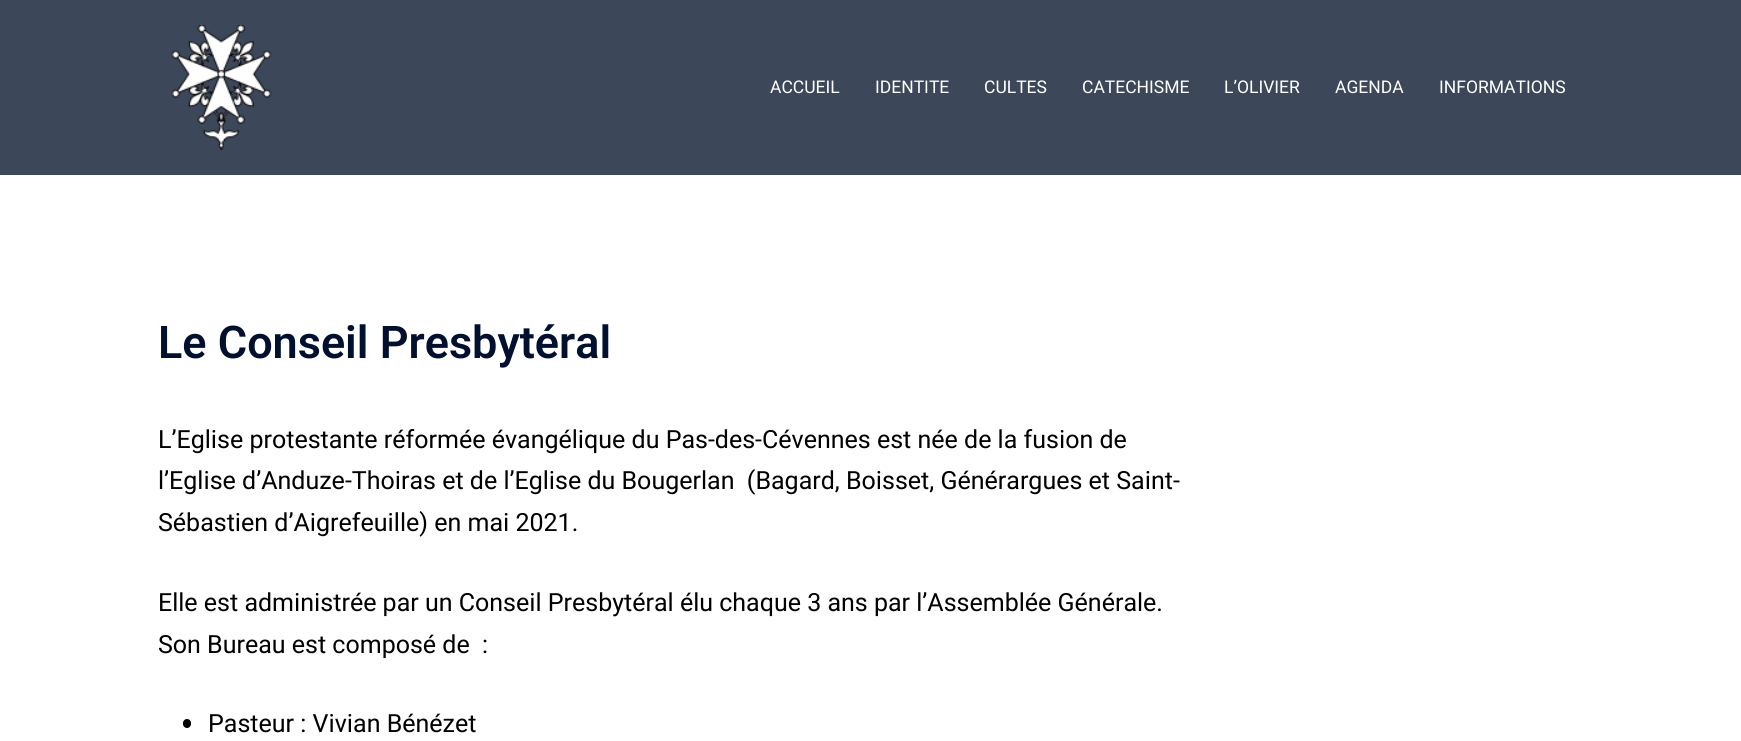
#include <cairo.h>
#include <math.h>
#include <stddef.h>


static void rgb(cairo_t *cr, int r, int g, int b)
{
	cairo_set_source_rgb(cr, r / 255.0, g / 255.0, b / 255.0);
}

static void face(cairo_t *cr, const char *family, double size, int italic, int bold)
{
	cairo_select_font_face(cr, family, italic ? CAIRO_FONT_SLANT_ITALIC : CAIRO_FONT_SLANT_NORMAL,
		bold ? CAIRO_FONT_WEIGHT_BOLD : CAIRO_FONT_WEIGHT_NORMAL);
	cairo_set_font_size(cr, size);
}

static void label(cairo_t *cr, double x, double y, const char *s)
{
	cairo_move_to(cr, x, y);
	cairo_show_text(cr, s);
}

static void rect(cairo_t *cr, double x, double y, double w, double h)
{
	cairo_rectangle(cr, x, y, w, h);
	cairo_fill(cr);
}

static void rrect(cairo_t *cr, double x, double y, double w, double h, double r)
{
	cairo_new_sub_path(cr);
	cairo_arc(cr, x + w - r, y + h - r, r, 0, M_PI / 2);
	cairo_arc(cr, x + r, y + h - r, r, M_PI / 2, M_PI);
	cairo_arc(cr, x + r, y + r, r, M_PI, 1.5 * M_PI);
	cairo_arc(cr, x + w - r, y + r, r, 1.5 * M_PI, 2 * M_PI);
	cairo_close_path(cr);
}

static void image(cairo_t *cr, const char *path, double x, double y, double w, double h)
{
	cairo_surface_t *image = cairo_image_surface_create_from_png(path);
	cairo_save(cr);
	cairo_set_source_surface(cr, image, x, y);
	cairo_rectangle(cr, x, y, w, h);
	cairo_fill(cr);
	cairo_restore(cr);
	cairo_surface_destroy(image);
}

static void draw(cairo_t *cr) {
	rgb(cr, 255, 255, 255);
	cairo_paint(cr);
	rgb(cr, 60, 71, 89);
	rect(cr, 0, 0, 1741, 175);
	image(cr, "image0.png", 171, 25, 101, 125);
	face(cr, "Heebo", 17.5, 0, 0);
	rgb(cr, 255, 255, 255);
	label(cr, 770, 93, "ACCUEIL");
	label(cr, 875, 93, "IDENTITE");
	label(cr, 984, 93, "CULTES");
	label(cr, 1082, 93, "CATECHISME");
	label(cr, 1224, 93, "L’OLIVIER");
	label(cr, 1335, 93, "AGENDA");
	label(cr, 1439, 93, "INFORMATIONS");
	face(cr, "Roboto SemiBold", 45, 0, 0);
	rgb(cr, 0, 16, 46);
	label(cr, 158, 358, "Le Conseil Presbytéral");
	face(cr, "Heebo", 25, 0, 0);
	rgb(cr, 0, 0, 0);
	label(cr, 158, 448, "L’Eglise protestante réformée évangélique du Pas-des-Cévennes est née de la fusion de");
	label(cr, 158, 489, "l’Eglise d’Anduze-Thoiras et de l’Eglise du Bougerlan  (Bagard, Boisset, Générargues et Saint-");
	label(cr, 158, 531, "Sébastien d’Aigrefeuille) en mai 2021.");
	label(cr, 158, 611, "Elle est administrée par un Conseil Presbytéral élu chaque 3 ans par l’Assemblée Générale.");
	label(cr, 158, 653, "Son Bureau est composé de  :");
	rrect(cr, 183, 719, 8, 9, 4);
	cairo_fill(cr);
	label(cr, 208, 732, "Pasteur : Vivian Bénézet");
}

int main(void) {
	cairo_surface_t *surface = cairo_image_surface_create(CAIRO_FORMAT_RGB24, 1741, 741);
	cairo_t *cr = cairo_create(surface);
	cairo_font_options_t *options = cairo_font_options_create();
	cairo_font_options_set_hint_metrics(options, CAIRO_HINT_METRICS_OFF);
	cairo_font_options_set_hint_style(options, CAIRO_HINT_STYLE_NONE);
	cairo_set_font_options(cr, options);
	cairo_set_miter_limit(cr, 4);
	draw(cr);
	cairo_surface_write_to_png(surface, "render.png");
	cairo_font_options_destroy(options);
	cairo_destroy(cr);
	cairo_surface_destroy(surface);
	return 0;
}
